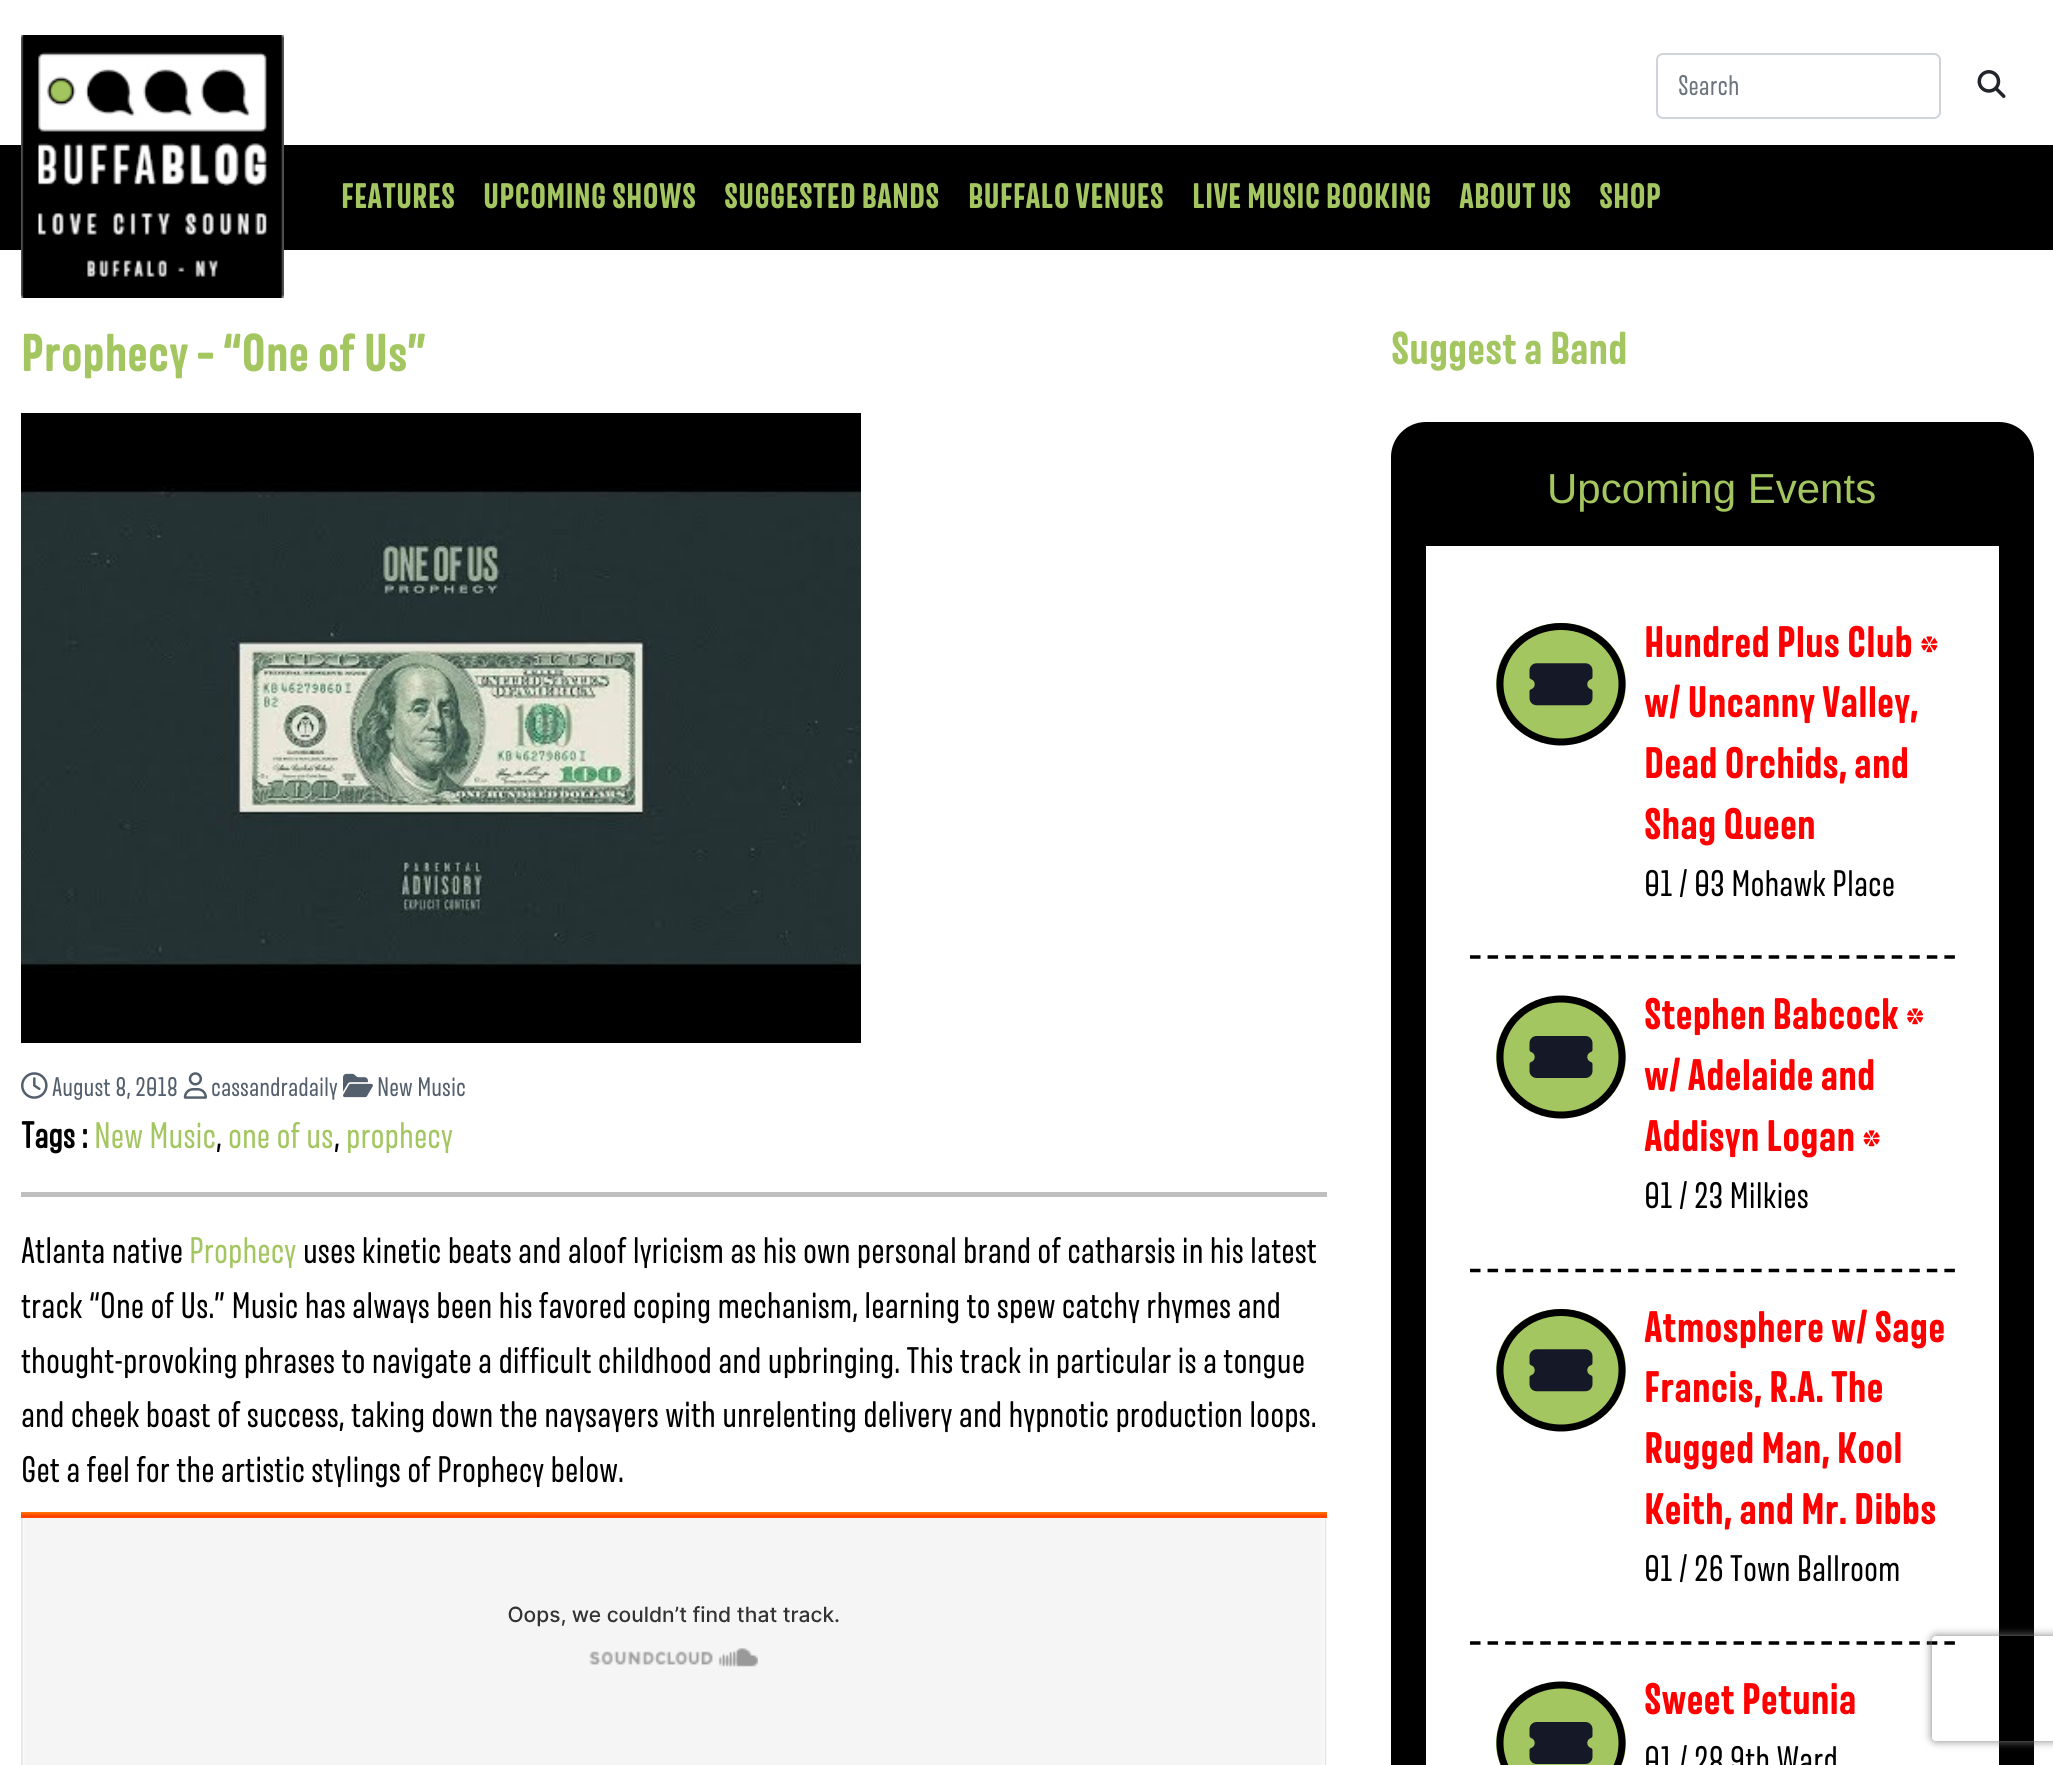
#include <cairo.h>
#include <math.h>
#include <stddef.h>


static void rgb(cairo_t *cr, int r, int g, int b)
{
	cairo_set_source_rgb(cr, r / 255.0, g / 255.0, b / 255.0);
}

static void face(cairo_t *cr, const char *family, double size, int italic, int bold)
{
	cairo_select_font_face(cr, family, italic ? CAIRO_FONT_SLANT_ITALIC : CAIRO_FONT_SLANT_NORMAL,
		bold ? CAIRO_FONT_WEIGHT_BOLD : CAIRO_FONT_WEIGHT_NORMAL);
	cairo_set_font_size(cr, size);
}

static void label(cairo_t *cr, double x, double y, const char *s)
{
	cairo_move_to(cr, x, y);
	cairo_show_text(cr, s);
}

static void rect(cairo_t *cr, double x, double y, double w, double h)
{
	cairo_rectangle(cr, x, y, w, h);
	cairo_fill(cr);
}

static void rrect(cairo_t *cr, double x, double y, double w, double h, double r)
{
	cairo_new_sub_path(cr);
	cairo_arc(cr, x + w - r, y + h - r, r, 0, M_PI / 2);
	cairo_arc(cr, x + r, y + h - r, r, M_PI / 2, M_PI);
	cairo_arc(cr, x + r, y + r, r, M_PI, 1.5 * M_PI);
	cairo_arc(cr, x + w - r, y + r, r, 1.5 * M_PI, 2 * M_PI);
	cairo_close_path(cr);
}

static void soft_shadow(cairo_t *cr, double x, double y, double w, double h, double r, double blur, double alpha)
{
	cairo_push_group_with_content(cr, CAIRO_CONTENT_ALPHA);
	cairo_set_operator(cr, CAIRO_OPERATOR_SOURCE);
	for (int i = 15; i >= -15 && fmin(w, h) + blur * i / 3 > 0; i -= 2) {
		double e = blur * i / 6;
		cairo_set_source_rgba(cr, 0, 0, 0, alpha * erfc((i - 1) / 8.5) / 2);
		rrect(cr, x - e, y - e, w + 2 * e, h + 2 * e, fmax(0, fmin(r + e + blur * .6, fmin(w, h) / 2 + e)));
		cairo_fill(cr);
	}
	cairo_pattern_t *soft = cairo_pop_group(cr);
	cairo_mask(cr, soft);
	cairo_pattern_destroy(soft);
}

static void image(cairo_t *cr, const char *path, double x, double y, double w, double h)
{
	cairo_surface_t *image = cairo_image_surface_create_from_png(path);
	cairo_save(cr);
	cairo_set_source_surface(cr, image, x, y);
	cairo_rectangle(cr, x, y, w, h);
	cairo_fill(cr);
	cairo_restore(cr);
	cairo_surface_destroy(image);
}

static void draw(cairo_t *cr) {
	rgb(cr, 255, 255, 255);
	cairo_paint(cr);
	rgb(cr, 0, 0, 0);
	rect(cr, 0, 145, 2053, 105);
	image(cr, "image0.png", 21, 35, 263, 263);
	rrect(cr, 1657, 54, 283, 64, 6);
	rgb(cr, 206, 212, 218);
	cairo_stroke(cr);
	face(cr, "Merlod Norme", 28, 0, 0);
	rgb(cr, 108, 117, 125);
	label(cr, 1678, 95, "Search");
	image(cr, "image1.png", 1977, 70, 29, 28);
	face(cr, "Merlod Norme", 35, 0, 1);
	rgb(cr, 163, 198, 96);
	label(cr, 341, 208, "FEATURES");
	label(cr, 483, 208, "UPCOMING SHOWS");
	label(cr, 724, 208, "SUGGESTED BANDS");
	label(cr, 968, 208, "BUFFALO VENUES");
	label(cr, 1192, 208, "LIVE MUSIC BOOKING");
	label(cr, 1459, 208, "ABOUT US");
	label(cr, 1599, 208, "SHOP");
	face(cr, "Merlod Norme", 52.5, 0, 1);
	label(cr, 21, 371, "Prophecy – “One of Us”");
	image(cr, "image2.png", 21, 413, 840, 630);
	image(cr, "image3.png", 21, 1072, 27, 27);
	face(cr, "Merlod Norme", 26.5, 0, 0);
	rgb(cr, 83, 95, 108);
	label(cr, 52, 1096, "August 8, 2018");
	image(cr, "image4.png", 183, 1072, 24, 27);
	label(cr, 211, 1096, "cassandradaily");
	image(cr, "image5.png", 343, 1073, 30, 25);
	label(cr, 377, 1096, "New Music");
	face(cr, "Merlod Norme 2", 36.4, 0, 1);
	rgb(cr, 0, 0, 0);
	label(cr, 21, 1148, "Tags :");
	face(cr, "Merlod Norme", 36.4, 0, 0);
	rgb(cr, 163, 198, 96);
	label(cr, 94, 1148, "New Music");
	rgb(cr, 0, 0, 0);
	label(cr, 216, 1148, ",");
	rgb(cr, 163, 198, 96);
	label(cr, 228, 1148, "one of us");
	rgb(cr, 0, 0, 0);
	label(cr, 334, 1148, ",");
	rgb(cr, 163, 198, 96);
	label(cr, 346, 1148, "prophecy");
	rgb(cr, 191, 191, 191);
	rect(cr, 21, 1192, 1306, 5);
	rgb(cr, 0, 0, 0);
	label(cr, 21, 1263, "Atlanta native");
	rgb(cr, 163, 198, 96);
	label(cr, 189, 1263, "Prophecy");
	rgb(cr, 0, 0, 0);
	label(cr, 303, 1263, "uses kinetic beats and aloof lyricism as his own personal brand of catharsis in his latest");
	label(cr, 21, 1318, "track “One of Us.” Music has always been his favored coping mechanism, learning to spew catchy rhymes and");
	label(cr, 21, 1373, "thought-provoking phrases to navigate a difficult childhood and upbringing. This track in particular is a tongue");
	label(cr, 21, 1427, "and cheek boast of success, taking down the naysayers with unrelenting delivery and hypnotic production loops.");
	label(cr, 21, 1482, "Get a feel for the artistic stylings of Prophecy below.");
	image(cr, "image6.png", 21, 1512, 1306, 253);
	face(cr, "Merlod Norme", 45.5, 0, 1);
	rgb(cr, 163, 198, 96);
	label(cr, 1391, 364, "Suggest a Band");
	rrect(cr, 1408.5, 439.5, 608, 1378, 17.5);
	rgb(cr, 0, 0, 0);
	cairo_set_line_width(cr, 35);
	cairo_stroke(cr);
	rect(cr, 1426, 457, 573, 89);
	face(cr, "Liberation Sans", 42, 0, 0);
	rgb(cr, 163, 198, 96);
	label(cr, 1547, 503, "Upcoming Events");
	cairo_new_path(cr);
	cairo_move_to(cr, 1470, 957);
	cairo_line_to(cr, 1955, 957);
	rgb(cr, 0, 0, 0);
	cairo_set_line_width(cr, 3.5);
	cairo_set_dash(cr, (double[]){10.5, 7.07}, 2, 0);
	cairo_stroke(cr);
	rgb(cr, 163, 198, 96);
	cairo_new_path(cr);
	cairo_move_to(cr, 1561, 623);
	cairo_curve_to(cr, 1597, 623, 1626, 650.5, 1626, 684);
	cairo_curve_to(cr, 1626, 717.5, 1597, 745, 1561, 745);
	cairo_curve_to(cr, 1525, 745, 1496, 717.5, 1496, 684);
	cairo_curve_to(cr, 1496, 650.5, 1525, 623, 1561, 623);
	cairo_close_path(cr);
	cairo_fill(cr);
	cairo_new_path(cr);
	cairo_move_to(cr, 1561, 626.5);
	cairo_curve_to(cr, 1595, 626.5, 1622, 652.5, 1622, 684);
	cairo_curve_to(cr, 1622, 716, 1595, 742, 1561, 742);
	cairo_curve_to(cr, 1527, 742, 1500, 716, 1500, 684);
	cairo_curve_to(cr, 1500, 652.5, 1527, 626.5, 1561, 626.5);
	cairo_close_path(cr);
	rgb(cr, 0, 0, 0);
	cairo_set_line_width(cr, 7);
	cairo_set_dash(cr, NULL, 0, 0);
	cairo_stroke(cr);
	image(cr, "image7.png", 1529, 663, 64, 43);
	face(cr, "Merlod Norme", 43.5, 0, 1);
	rgb(cr, 255, 0, 0);
	label(cr, 1644, 657, "Hundred Plus Club *");
	label(cr, 1644, 717, "w/ Uncanny Valley,");
	label(cr, 1644, 778, "Dead Orchids, and");
	label(cr, 1644, 839, "Shag Queen");
	face(cr, "Merlod Norme", 36.4, 0, 0);
	rgb(cr, 0, 0, 0);
	label(cr, 1644, 896, "01 / 03 Mohawk Place");
	cairo_new_path(cr);
	cairo_move_to(cr, 1470, 1270.5);
	cairo_line_to(cr, 1955, 1270.5);
	cairo_set_line_width(cr, 3.5);
	cairo_set_dash(cr, (double[]){10.5, 7.07}, 2, 0);
	cairo_stroke(cr);
	rgb(cr, 163, 198, 96);
	cairo_new_path(cr);
	cairo_move_to(cr, 1561, 996);
	cairo_curve_to(cr, 1597, 996, 1626, 1023.5, 1626, 1057);
	cairo_curve_to(cr, 1626, 1090.5, 1597, 1118, 1561, 1118);
	cairo_curve_to(cr, 1525, 1118, 1496, 1090.5, 1496, 1057);
	cairo_curve_to(cr, 1496, 1023.5, 1525, 996, 1561, 996);
	cairo_close_path(cr);
	cairo_fill(cr);
	cairo_new_path(cr);
	cairo_move_to(cr, 1561, 999);
	cairo_curve_to(cr, 1595, 999, 1622, 1025, 1622, 1057);
	cairo_curve_to(cr, 1622, 1089, 1595, 1115, 1561, 1115);
	cairo_curve_to(cr, 1527, 1115, 1500, 1089, 1500, 1057);
	cairo_curve_to(cr, 1500, 1025, 1527, 999, 1561, 999);
	cairo_close_path(cr);
	rgb(cr, 0, 0, 0);
	cairo_set_line_width(cr, 7);
	cairo_set_dash(cr, NULL, 0, 0);
	cairo_stroke(cr);
	image(cr, "image8.png", 1529, 1036, 64, 42);
	face(cr, "Merlod Norme", 43.5, 0, 1);
	rgb(cr, 255, 0, 0);
	label(cr, 1644, 1029, "Stephen Babcock *");
	label(cr, 1644, 1090, "w/ Adelaide and");
	label(cr, 1644, 1151, "Addisyn Logan *");
	face(cr, "Merlod Norme", 36.4, 0, 0);
	rgb(cr, 0, 0, 0);
	label(cr, 1644, 1208, "01 / 23 Milkies");
	cairo_new_path(cr);
	cairo_move_to(cr, 1470, 1643);
	cairo_line_to(cr, 1955, 1643);
	cairo_set_line_width(cr, 3.5);
	cairo_set_dash(cr, (double[]){10.5, 7.07}, 2, 0);
	cairo_stroke(cr);
	rgb(cr, 163, 198, 96);
	cairo_new_path(cr);
	cairo_move_to(cr, 1561, 1309);
	cairo_curve_to(cr, 1597, 1309, 1626, 1336.5, 1626, 1370);
	cairo_curve_to(cr, 1626, 1403.5, 1597, 1431, 1561, 1431);
	cairo_curve_to(cr, 1525, 1431, 1496, 1403.5, 1496, 1370);
	cairo_curve_to(cr, 1496, 1336.5, 1525, 1309, 1561, 1309);
	cairo_close_path(cr);
	cairo_fill(cr);
	cairo_new_path(cr);
	cairo_move_to(cr, 1561, 1312.5);
	cairo_curve_to(cr, 1595, 1312.5, 1622, 1338.5, 1622, 1370);
	cairo_curve_to(cr, 1622, 1402, 1595, 1428, 1561, 1428);
	cairo_curve_to(cr, 1527, 1428, 1500, 1402, 1500, 1370);
	cairo_curve_to(cr, 1500, 1338.5, 1527, 1312.5, 1561, 1312.5);
	cairo_close_path(cr);
	rgb(cr, 0, 0, 0);
	cairo_set_line_width(cr, 7);
	cairo_set_dash(cr, NULL, 0, 0);
	cairo_stroke(cr);
	image(cr, "image7.png", 1529, 1349, 64, 43);
	face(cr, "Merlod Norme", 43.5, 0, 1);
	rgb(cr, 255, 0, 0);
	label(cr, 1644, 1342, "Atmosphere w/ Sage");
	label(cr, 1644, 1402, "Francis, R.A. The");
	label(cr, 1644, 1463, "Rugged Man, Kool");
	label(cr, 1644, 1524, "Keith, and Mr. Dibbs");
	face(cr, "Merlod Norme", 36.4, 0, 0);
	rgb(cr, 0, 0, 0);
	label(cr, 1644, 1581, "01 / 26 Town Ballroom");
	rgb(cr, 163, 198, 96);
	cairo_new_path(cr);
	cairo_move_to(cr, 1561, 1682);
	cairo_curve_to(cr, 1597, 1682, 1626, 1709.5, 1626, 1743);
	cairo_curve_to(cr, 1626, 1776.5, 1597, 1804, 1561, 1804);
	cairo_curve_to(cr, 1525, 1804, 1496, 1776.5, 1496, 1743);
	cairo_curve_to(cr, 1496, 1709.5, 1525, 1682, 1561, 1682);
	cairo_close_path(cr);
	cairo_fill(cr);
	cairo_new_path(cr);
	cairo_move_to(cr, 1561, 1685);
	cairo_curve_to(cr, 1595, 1685, 1622, 1711, 1622, 1743);
	cairo_curve_to(cr, 1622, 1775, 1595, 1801, 1561, 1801);
	cairo_curve_to(cr, 1527, 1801, 1500, 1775, 1500, 1743);
	cairo_curve_to(cr, 1500, 1711, 1527, 1685, 1561, 1685);
	cairo_close_path(cr);
	rgb(cr, 0, 0, 0);
	cairo_stroke(cr);
	image(cr, "image8.png", 1529, 1722, 64, 42);
	face(cr, "Merlod Norme", 43.5, 0, 1);
	rgb(cr, 255, 0, 0);
	label(cr, 1644, 1714, "Sweet Petunia");
	face(cr, "Merlod Norme", 36.4, 0, 0);
	rgb(cr, 0, 0, 0);
	label(cr, 1644, 1772, "01 / 28 9th Ward");
	cairo_save(cr);
	cairo_set_fill_rule(cr, CAIRO_FILL_RULE_EVEN_ODD);
	cairo_new_path(cr);
	cairo_move_to(cr, 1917, 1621);
	cairo_line_to(cr, 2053, 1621);
	cairo_line_to(cr, 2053, 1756);
	cairo_line_to(cr, 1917, 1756);
	cairo_close_path(cr);
	cairo_move_to(cr, 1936, 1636);
	cairo_line_to(cr, 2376, 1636);
	cairo_curve_to(cr, 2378, 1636, 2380, 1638, 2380, 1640);
	cairo_line_to(cr, 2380, 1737);
	cairo_curve_to(cr, 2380, 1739, 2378, 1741, 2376, 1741);
	cairo_line_to(cr, 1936, 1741);
	cairo_curve_to(cr, 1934, 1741, 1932, 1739, 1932, 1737);
	cairo_line_to(cr, 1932, 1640);
	cairo_curve_to(cr, 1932, 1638, 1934, 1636, 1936, 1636);
	cairo_close_path(cr);
	cairo_clip(cr);
	rgb(cr, 128, 128, 128);
	soft_shadow(cr, 1932, 1636, 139, 105, 4, 4.5, 1);
	cairo_restore(cr);
}

int main(void) {
	cairo_surface_t *surface = cairo_image_surface_create(CAIRO_FORMAT_RGB24, 2053, 1765);
	cairo_t *cr = cairo_create(surface);
	cairo_font_options_t *options = cairo_font_options_create();
	cairo_font_options_set_hint_metrics(options, CAIRO_HINT_METRICS_OFF);
	cairo_font_options_set_hint_style(options, CAIRO_HINT_STYLE_NONE);
	cairo_set_font_options(cr, options);
	cairo_set_miter_limit(cr, 4);
	draw(cr);
	cairo_surface_write_to_png(surface, "render.png");
	cairo_font_options_destroy(options);
	cairo_destroy(cr);
	cairo_surface_destroy(surface);
	return 0;
}
